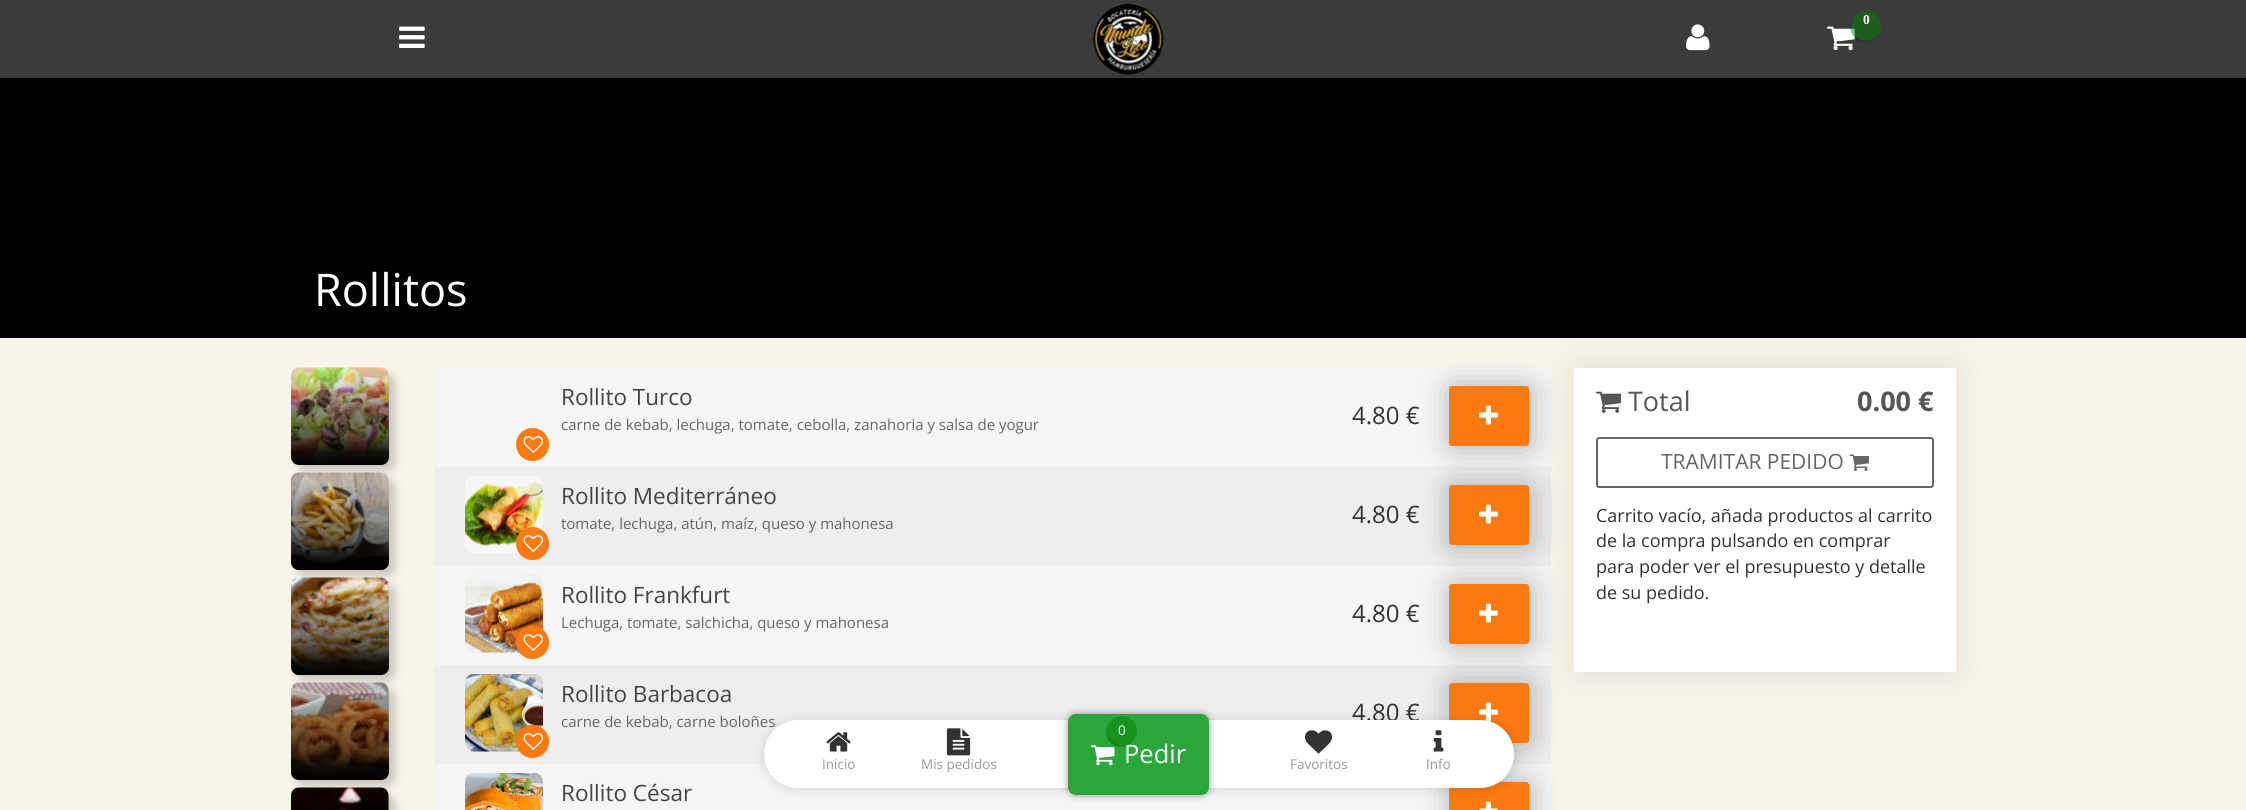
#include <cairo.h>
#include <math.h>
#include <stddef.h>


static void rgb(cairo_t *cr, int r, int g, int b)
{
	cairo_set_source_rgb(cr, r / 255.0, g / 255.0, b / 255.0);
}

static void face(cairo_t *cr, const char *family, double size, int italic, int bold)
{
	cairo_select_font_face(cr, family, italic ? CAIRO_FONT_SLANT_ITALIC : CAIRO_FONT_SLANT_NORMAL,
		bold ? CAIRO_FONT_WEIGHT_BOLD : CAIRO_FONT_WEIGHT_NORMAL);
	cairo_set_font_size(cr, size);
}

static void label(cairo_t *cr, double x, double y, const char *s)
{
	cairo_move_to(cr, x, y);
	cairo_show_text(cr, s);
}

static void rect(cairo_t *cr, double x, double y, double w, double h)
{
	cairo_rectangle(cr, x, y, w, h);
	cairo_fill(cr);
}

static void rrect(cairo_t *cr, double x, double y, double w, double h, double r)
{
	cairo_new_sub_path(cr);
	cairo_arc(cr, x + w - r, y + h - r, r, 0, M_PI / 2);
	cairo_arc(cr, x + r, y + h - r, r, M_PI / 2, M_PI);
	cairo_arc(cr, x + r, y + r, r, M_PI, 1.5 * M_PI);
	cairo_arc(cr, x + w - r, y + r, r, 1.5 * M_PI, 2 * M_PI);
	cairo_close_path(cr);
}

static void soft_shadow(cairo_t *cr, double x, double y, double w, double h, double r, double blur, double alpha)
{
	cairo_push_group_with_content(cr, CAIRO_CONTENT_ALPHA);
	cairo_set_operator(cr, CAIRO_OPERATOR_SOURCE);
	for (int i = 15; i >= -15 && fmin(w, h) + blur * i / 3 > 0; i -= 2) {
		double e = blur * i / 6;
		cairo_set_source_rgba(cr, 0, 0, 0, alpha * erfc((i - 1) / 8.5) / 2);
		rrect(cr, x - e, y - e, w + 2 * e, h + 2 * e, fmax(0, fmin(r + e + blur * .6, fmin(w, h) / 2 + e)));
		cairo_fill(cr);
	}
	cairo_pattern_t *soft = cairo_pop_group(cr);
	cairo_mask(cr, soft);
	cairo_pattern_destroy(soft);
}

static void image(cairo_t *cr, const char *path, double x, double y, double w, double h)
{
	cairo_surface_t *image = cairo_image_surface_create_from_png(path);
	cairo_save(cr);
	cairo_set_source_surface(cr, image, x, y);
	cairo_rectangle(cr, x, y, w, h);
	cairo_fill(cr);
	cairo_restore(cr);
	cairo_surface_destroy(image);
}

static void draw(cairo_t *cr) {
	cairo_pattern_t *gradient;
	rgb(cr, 250, 245, 235);
	cairo_paint(cr);
	rgb(cr, 59, 59, 59);
	rect(cr, 0, 0, 2246, 78);
	image(cr, "image0.png", 1092, 3, 72, 73);
	image(cr, "image1.png", 1827, 26, 28, 25);
	cairo_set_source_rgba(cr, 0, 0, 0, 0.25);
	cairo_new_path(cr);
	cairo_move_to(cr, 1878, 34.5);
	cairo_curve_to(cr, 1866.5, 49.5, 1843.5, 34, 1853, 18);
	cairo_curve_to(cr, 1848, 24.5, 1849.5, 34.5, 1856.5, 39.5);
	cairo_curve_to(cr, 1863.5, 44, 1873.5, 42, 1878, 34.5);
	cairo_close_path(cr);
	cairo_fill(cr);
	cairo_set_source_rgba(cr, 0, 0.502, 0, 0.5);
	cairo_arc(cr, 1866, 26, 15, 0, 2 * M_PI);
	cairo_fill(cr);
	face(cr, "Liberation Serif", 13.5, 0, 1);
	rgb(cr, 255, 255, 255);
	label(cr, 1863, 24, "0");
	image(cr, "image2.png", 399, 26, 26, 22);
	image(cr, "image3.png", 1686, 24, 24, 27);
	rgb(cr, 0, 0, 0);
	rect(cr, 0, 78, 2246, 260);
	face(cr, "Open Sans", 45, 0, 0);
	rgb(cr, 255, 255, 255);
	label(cr, 314, 306, "Rollitos");
	rgb(cr, 0, 0, 0);
	soft_shadow(cr, 297, 374, 98, 97, 8, 4.5, 0.2);
	image(cr, "image4.png", 291, 367, 98, 98);
	soft_shadow(cr, 297, 479, 98, 97, 8, 4.5, 0.2);
	gradient = cairo_pattern_create_linear(340, 368, 340, 465);
	cairo_pattern_add_color_stop_rgba(gradient, 0, 0, 0, 0, 0);
	cairo_pattern_add_color_stop_rgba(gradient, 0.18, 0, 0, 0, 0.13);
	cairo_pattern_add_color_stop_rgba(gradient, 0.36, 0, 0, 0, 0.33);
	cairo_pattern_add_color_stop_rgba(gradient, 0.7, 0, 0, 0, 0.6);
	cairo_pattern_add_color_stop_rgba(gradient, 0.87, 0, 0, 0, 0.91);
	cairo_pattern_add_color_stop_rgba(gradient, 1, 0, 0, 0, 1);
	cairo_set_source(cr, gradient);
	cairo_pattern_destroy(gradient);
	rrect(cr, 291, 368, 98, 97, 8);
	cairo_fill(cr);
	image(cr, "image5.png", 291, 472, 98, 98);
	rgb(cr, 0, 0, 0);
	soft_shadow(cr, 297, 584, 98, 97, 8, 4.5, 0.2);
	gradient = cairo_pattern_create_linear(340, 473, 340, 570);
	cairo_pattern_add_color_stop_rgba(gradient, 0, 0, 0, 0, 0);
	cairo_pattern_add_color_stop_rgba(gradient, 0.18, 0, 0, 0, 0.13);
	cairo_pattern_add_color_stop_rgba(gradient, 0.36, 0, 0, 0, 0.33);
	cairo_pattern_add_color_stop_rgba(gradient, 0.7, 0, 0, 0, 0.6);
	cairo_pattern_add_color_stop_rgba(gradient, 0.87, 0, 0, 0, 0.91);
	cairo_pattern_add_color_stop_rgba(gradient, 1, 0, 0, 0, 1);
	cairo_set_source(cr, gradient);
	cairo_pattern_destroy(gradient);
	rrect(cr, 291, 473, 98, 97, 8);
	cairo_fill(cr);
	image(cr, "image6.png", 291, 577, 98, 98);
	rgb(cr, 0, 0, 0);
	soft_shadow(cr, 297, 689, 98, 97, 8, 4.5, 0.2);
	gradient = cairo_pattern_create_linear(340, 578, 340, 675);
	cairo_pattern_add_color_stop_rgba(gradient, 0, 0, 0, 0, 0);
	cairo_pattern_add_color_stop_rgba(gradient, 0.18, 0, 0, 0, 0.13);
	cairo_pattern_add_color_stop_rgba(gradient, 0.36, 0, 0, 0, 0.33);
	cairo_pattern_add_color_stop_rgba(gradient, 0.7, 0, 0, 0, 0.6);
	cairo_pattern_add_color_stop_rgba(gradient, 0.87, 0, 0, 0, 0.91);
	cairo_pattern_add_color_stop_rgba(gradient, 1, 0, 0, 0, 1);
	cairo_set_source(cr, gradient);
	cairo_pattern_destroy(gradient);
	rrect(cr, 291, 578, 98, 97, 8);
	cairo_fill(cr);
	image(cr, "image7.png", 291, 682, 98, 98);
	rgb(cr, 0, 0, 0);
	soft_shadow(cr, 297, 794, 98, 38, 8, 4.5, 0.2);
	gradient = cairo_pattern_create_linear(340, 683, 340, 780);
	cairo_pattern_add_color_stop_rgba(gradient, 0, 0, 0, 0, 0);
	cairo_pattern_add_color_stop_rgba(gradient, 0.18, 0, 0, 0, 0.13);
	cairo_pattern_add_color_stop_rgba(gradient, 0.36, 0, 0, 0, 0.33);
	cairo_pattern_add_color_stop_rgba(gradient, 0.7, 0, 0, 0, 0.6);
	cairo_pattern_add_color_stop_rgba(gradient, 0.87, 0, 0, 0, 0.91);
	cairo_pattern_add_color_stop_rgba(gradient, 1, 0, 0, 0, 1);
	cairo_set_source(cr, gradient);
	cairo_pattern_destroy(gradient);
	rrect(cr, 291, 683, 98, 97, 8);
	cairo_fill(cr);
	image(cr, "image8.png", 291, 787, 98, 23);
	gradient = cairo_pattern_create_linear(340, 788, 340, 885);
	cairo_pattern_add_color_stop_rgba(gradient, 0, 0, 0, 0, 0);
	cairo_pattern_add_color_stop_rgba(gradient, 0.18, 0, 0, 0, 0.13);
	cairo_pattern_add_color_stop_rgba(gradient, 0.36, 0, 0, 0, 0.33);
	cairo_pattern_add_color_stop_rgba(gradient, 0.7, 0, 0, 0, 0.6);
	cairo_pattern_add_color_stop_rgba(gradient, 0.87, 0, 0, 0, 0.91);
	cairo_pattern_add_color_stop_rgba(gradient, 1, 0, 0, 0, 1);
	cairo_set_source(cr, gradient);
	cairo_pattern_destroy(gradient);
	rect(cr, 291, 791, 98, 19);
	rgb(cr, 246, 246, 246);
	rect(cr, 434, 368, 1117, 99);
	face(cr, "Open Sans", 22.5, 0, 0);
	rgb(cr, 68, 68, 68);
	label(cr, 561, 405, "Rollito Turco");
	face(cr, "Open Sans", 15, 0, 0);
	rgb(cr, 102, 102, 102);
	label(cr, 561, 430, "carne de kebab, lechuga, tomate, cebolla, zanahoria y salsa de yogur");
	rgb(cr, 253, 121, 18);
	cairo_new_path(cr);
	cairo_arc(cr, 532.5, 444.5, 16.5, 0, 2 * M_PI);
	cairo_fill(cr);
	image(cr, "image9.png", 523, 436, 20, 17);
	face(cr, "Open Sans", 24, 0, 0);
	rgb(cr, 51, 51, 51);
	label(cr, 1352, 424, "4.80 €");
	rgb(cr, 238, 238, 238);
	rect(cr, 434, 467, 1117, 99);
	rgb(cr, 0, 0, 0);
	soft_shadow(cr, 1451, 387, 79, 60, 3, 15, 0.3);
	rgb(cr, 253, 121, 18);
	rrect(cr, 1449, 386, 80, 60, 3);
	cairo_fill(cr);
	image(cr, "image10.png", 1479, 405, 19, 20);
	image(cr, "image11.png", 465, 475, 78, 79);
	cairo_arc(cr, 532.5, 543.5, 16.5, 0, 2 * M_PI);
	cairo_fill(cr);
	image(cr, "image9.png", 523, 535, 20, 17);
	face(cr, "Open Sans", 22.5, 0, 0);
	rgb(cr, 68, 68, 68);
	label(cr, 561, 504, "Rollito Mediterráneo");
	face(cr, "Open Sans", 15, 0, 0);
	rgb(cr, 102, 102, 102);
	label(cr, 561, 529, "tomate, lechuga, atún, maíz, queso y mahonesa");
	face(cr, "Open Sans", 24, 0, 0);
	rgb(cr, 51, 51, 51);
	label(cr, 1352, 523, "4.80 €");
	rgb(cr, 246, 246, 246);
	rect(cr, 434, 566, 1117, 99);
	rgb(cr, 0, 0, 0);
	soft_shadow(cr, 1451, 486, 79, 60, 3, 15, 0.3);
	rgb(cr, 253, 121, 18);
	rrect(cr, 1449, 485, 80, 60, 3);
	cairo_fill(cr);
	image(cr, "image10.png", 1479, 504, 19, 20);
	image(cr, "image12.png", 465, 574, 78, 79);
	cairo_arc(cr, 532.5, 642.5, 16.5, 0, 2 * M_PI);
	cairo_fill(cr);
	image(cr, "image9.png", 523, 634, 20, 17);
	face(cr, "Open Sans", 22.5, 0, 0);
	rgb(cr, 68, 68, 68);
	label(cr, 561, 603, "Rollito Frankfurt");
	face(cr, "Open Sans", 15, 0, 0);
	rgb(cr, 102, 102, 102);
	label(cr, 561, 628, "Lechuga, tomate, salchicha, queso y mahonesa");
	face(cr, "Open Sans", 24, 0, 0);
	rgb(cr, 51, 51, 51);
	label(cr, 1352, 622, "4.80 €");
	rgb(cr, 238, 238, 238);
	rect(cr, 434, 665, 1117, 99);
	rgb(cr, 0, 0, 0);
	soft_shadow(cr, 1451, 585, 79, 60, 3, 15, 0.3);
	rgb(cr, 253, 121, 18);
	rrect(cr, 1449, 584, 80, 60, 3);
	cairo_fill(cr);
	image(cr, "image10.png", 1479, 603, 19, 20);
	image(cr, "image13.png", 465, 674, 78, 78);
	cairo_arc(cr, 532.5, 741.5, 16.5, 0, 2 * M_PI);
	cairo_fill(cr);
	image(cr, "image9.png", 523, 733, 20, 17);
	face(cr, "Open Sans", 22.5, 0, 0);
	rgb(cr, 68, 68, 68);
	label(cr, 561, 702, "Rollito Barbacoa");
	face(cr, "Open Sans", 15, 0, 0);
	rgb(cr, 102, 102, 102);
	label(cr, 561, 727, "carne de kebab, carne boloñes");
	face(cr, "Open Sans", 24, 0, 0);
	rgb(cr, 51, 51, 51);
	label(cr, 1352, 721, "4.80 €");
	rgb(cr, 246, 246, 246);
	rect(cr, 434, 764, 1117, 46);
	rgb(cr, 0, 0, 0);
	soft_shadow(cr, 1451, 684, 79, 60, 3, 15, 0.3);
	rgb(cr, 253, 121, 18);
	rrect(cr, 1449, 683, 80, 60, 3);
	cairo_fill(cr);
	image(cr, "image10.png", 1479, 702, 19, 20);
	image(cr, "image14.png", 465, 773, 78, 37);
	face(cr, "Open Sans", 22.5, 0, 0);
	rgb(cr, 68, 68, 68);
	label(cr, 561, 801, "Rollito César");
	rgb(cr, 0, 0, 0);
	soft_shadow(cr, 1451, 783, 79, 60, 3, 15, 0.3);
	rgb(cr, 253, 121, 18);
	rrect(cr, 1449, 782, 80, 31, 3);
	cairo_fill(cr);
	image(cr, "image15.png", 1479, 801, 19, 9);
	rgb(cr, 0, 0, 0);
	soft_shadow(cr, 762, 719, 756, 73, 36.5, 4, 0.1);
	soft_shadow(cr, 1574, 368, 382, 304, 0, 22.5, 0.1);
	rgb(cr, 255, 255, 255);
	rrect(cr, 764, 720, 750, 68, 34);
	cairo_fill(cr);
	rgb(cr, 0, 0, 0);
	soft_shadow(cr, 1068, 714, 141, 81, 8, 4, 0.4);
	rgb(cr, 42, 166, 59);
	rrect(cr, 1068, 714, 141, 81, 8);
	cairo_fill(cr);
	face(cr, "Open Sans", 25.5, 0, 0);
	rgb(cr, 255, 255, 255);
	label(cr, 1124, 763, "Pedir");
	cairo_set_source_rgba(cr, 0, 0, 0, 0.25);
	cairo_new_path(cr);
	cairo_move_to(cr, 1110, 721.5);
	cairo_curve_to(cr, 1104.5, 727.5, 1104.5, 737, 1110.5, 742.5);
	cairo_curve_to(cr, 1117, 749, 1127.5, 748, 1133, 741);
	cairo_curve_to(cr, 1120, 754, 1099, 736.5, 1110, 721.5);
	cairo_close_path(cr);
	cairo_fill(cr);
	cairo_set_source_rgba(cr, 0, 0.502, 0, 0.5);
	cairo_arc(cr, 1122, 731, 15, 0, 2 * M_PI);
	cairo_fill(cr);
	face(cr, "Open Sans", 13.5, 0, 0);
	rgb(cr, 255, 255, 255);
	label(cr, 1118, 735, "0");
	image(cr, "image16.png", 1090, 745, 25, 21);
	image(cr, "image17.png", 826, 732, 25, 20);
	rgb(cr, 153, 153, 153);
	label(cr, 822, 769, "Inicio");
	image(cr, "image18.png", 946, 728, 25, 28);
	label(cr, 921, 769, "Mis pedidos");
	image(cr, "image19.png", 1305, 730, 27, 24);
	label(cr, 1290, 769, "Favoritos");
	image(cr, "image20.png", 1433, 730, 11, 22);
	label(cr, 1426, 769, "Info");
	rgb(cr, 255, 255, 255);
	rect(cr, 1574, 368, 382, 304);
	image(cr, "image21.png", 1596, 391, 26, 22);
	face(cr, "Open Sans", 27, 0, 0);
	rgb(cr, 86, 86, 86);
	label(cr, 1628, 411, "Total");
	face(cr, "Open Sans", 27, 0, 1);
	label(cr, 1857, 411, "0.00 €");
	rrect(cr, 1597, 438, 336, 49, 2);
	rgb(cr, 102, 102, 102);
	cairo_stroke(cr);
	face(cr, "Open Sans", 21, 0, 0);
	label(cr, 1661, 469, "TRAMITAR PEDIDO");
	image(cr, "image22.png", 1849, 454, 20, 17);
	face(cr, "Open Sans", 18, 0, 0);
	rgb(cr, 51, 51, 51);
	label(cr, 1596, 522, "Carrito vacío, añada productos al carrito");
	label(cr, 1596, 547, "de la compra pulsando en comprar");
	label(cr, 1596, 573, "para poder ver el presupuesto y detalle");
	label(cr, 1596, 599, "de su pedido.");
}

int main(void) {
	cairo_surface_t *surface = cairo_image_surface_create(CAIRO_FORMAT_RGB24, 2246, 810);
	cairo_t *cr = cairo_create(surface);
	cairo_font_options_t *options = cairo_font_options_create();
	cairo_font_options_set_hint_metrics(options, CAIRO_HINT_METRICS_OFF);
	cairo_font_options_set_hint_style(options, CAIRO_HINT_STYLE_NONE);
	cairo_set_font_options(cr, options);
	cairo_set_miter_limit(cr, 4);
	draw(cr);
	cairo_surface_write_to_png(surface, "render.png");
	cairo_font_options_destroy(options);
	cairo_destroy(cr);
	cairo_surface_destroy(surface);
	return 0;
}
